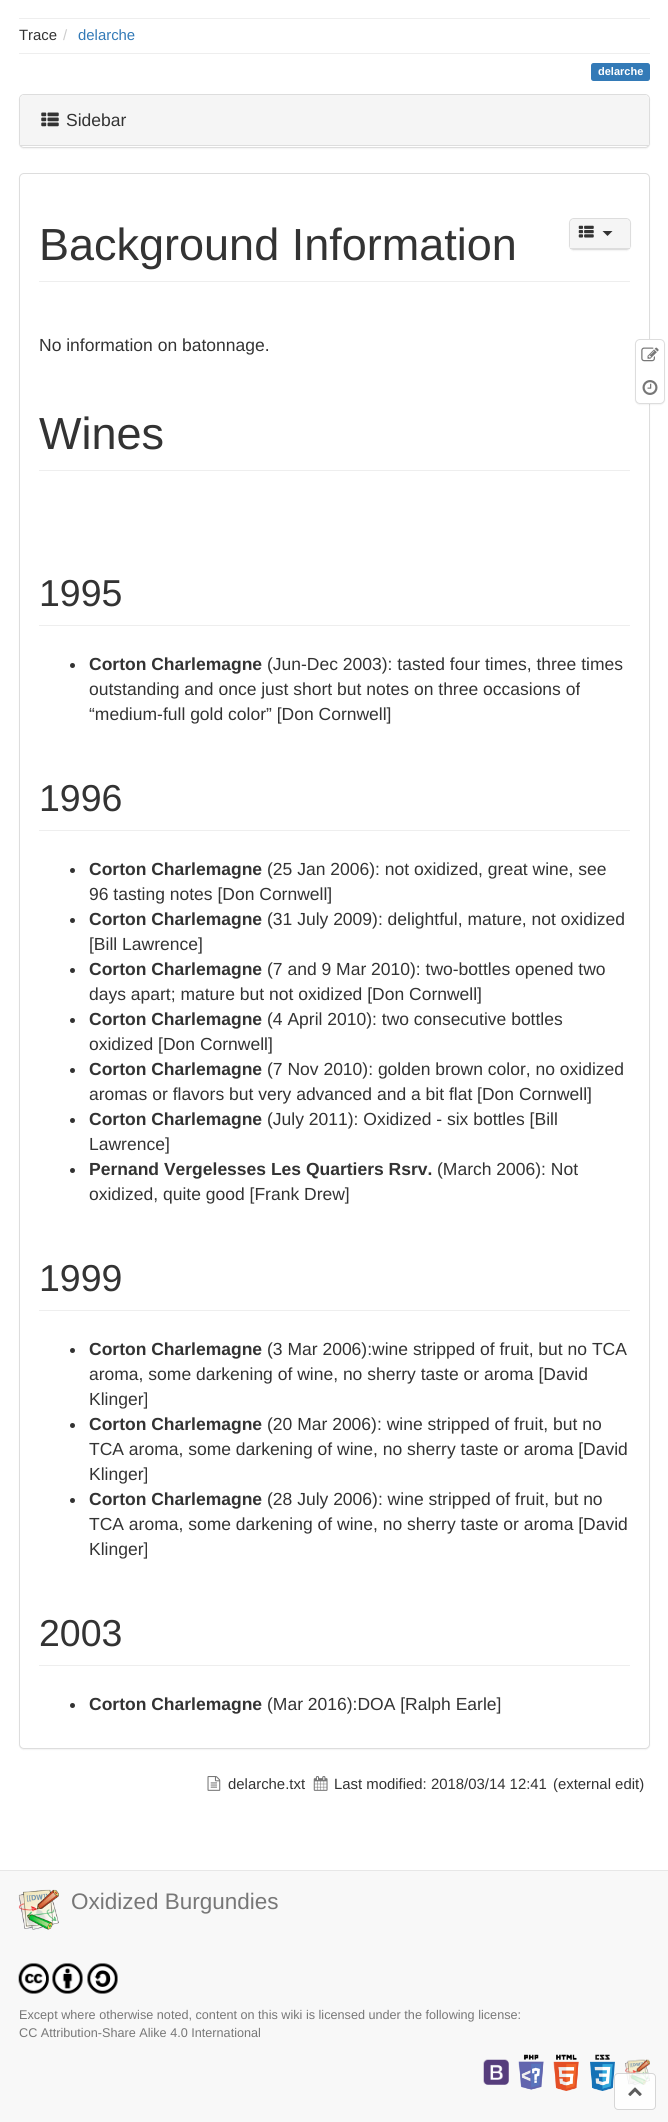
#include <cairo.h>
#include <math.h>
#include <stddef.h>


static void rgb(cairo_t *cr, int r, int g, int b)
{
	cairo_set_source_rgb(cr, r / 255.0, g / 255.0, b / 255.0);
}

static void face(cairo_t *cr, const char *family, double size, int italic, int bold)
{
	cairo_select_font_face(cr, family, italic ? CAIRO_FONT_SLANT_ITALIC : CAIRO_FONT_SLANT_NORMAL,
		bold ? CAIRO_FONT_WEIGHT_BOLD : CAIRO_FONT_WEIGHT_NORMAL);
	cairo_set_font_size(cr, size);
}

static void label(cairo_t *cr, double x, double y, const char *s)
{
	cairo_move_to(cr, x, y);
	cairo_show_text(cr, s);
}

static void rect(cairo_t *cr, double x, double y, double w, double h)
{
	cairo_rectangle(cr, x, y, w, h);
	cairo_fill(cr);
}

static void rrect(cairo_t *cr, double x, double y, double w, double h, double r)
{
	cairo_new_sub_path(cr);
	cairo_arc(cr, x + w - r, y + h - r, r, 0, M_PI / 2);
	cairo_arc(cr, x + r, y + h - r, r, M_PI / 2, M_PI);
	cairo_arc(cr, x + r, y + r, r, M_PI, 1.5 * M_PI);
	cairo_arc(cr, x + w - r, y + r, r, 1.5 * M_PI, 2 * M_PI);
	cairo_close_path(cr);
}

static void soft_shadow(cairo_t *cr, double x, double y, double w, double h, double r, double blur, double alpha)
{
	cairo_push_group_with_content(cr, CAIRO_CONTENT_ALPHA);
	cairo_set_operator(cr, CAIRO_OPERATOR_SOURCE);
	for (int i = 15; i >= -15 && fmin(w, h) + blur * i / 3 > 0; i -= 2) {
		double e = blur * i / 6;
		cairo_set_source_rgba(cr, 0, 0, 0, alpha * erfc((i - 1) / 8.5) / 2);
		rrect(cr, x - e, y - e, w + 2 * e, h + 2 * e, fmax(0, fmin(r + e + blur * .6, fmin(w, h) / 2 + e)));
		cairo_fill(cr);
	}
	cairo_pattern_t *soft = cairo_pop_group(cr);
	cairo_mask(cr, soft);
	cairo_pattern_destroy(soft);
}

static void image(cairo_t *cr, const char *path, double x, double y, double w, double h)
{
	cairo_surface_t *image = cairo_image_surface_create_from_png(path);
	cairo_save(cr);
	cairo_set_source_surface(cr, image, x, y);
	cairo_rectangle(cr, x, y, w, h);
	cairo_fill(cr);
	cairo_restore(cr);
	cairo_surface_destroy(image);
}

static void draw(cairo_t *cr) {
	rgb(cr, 255, 255, 255);
	cairo_paint(cr);
	rgb(cr, 238, 238, 238);
	rect(cr, 19, 18, 631, 1);
	face(cr, "Liberation Sans", 14.9, 0, 0);
	rgb(cr, 51, 51, 51);
	label(cr, 19, 40, "Trace");
	rgb(cr, 204, 204, 204);
	label(cr, 63, 40, "/");
	rgb(cr, 51, 122, 183);
	label(cr, 78, 40, "delarche");
	rgb(cr, 238, 238, 238);
	rect(cr, 19, 53, 631, 1);
	rgb(cr, 51, 122, 183);
	rrect(cr, 591, 63, 59, 18, 2.5);
	cairo_fill(cr);
	face(cr, "Liberation Sans", 11, 0, 1);
	rgb(cr, 255, 255, 255);
	label(cr, 598, 75, "delarche");
	rgb(cr, 0, 0, 0);
	soft_shadow(cr, 19, 95, 631, 54, 5, 0.5, 0.05);
	rgb(cr, 255, 255, 255);
	rrect(cr, 19.5, 94.5, 630, 53, 4.5);
	cairo_fill_preserve(cr);
	rgb(cr, 221, 221, 221);
	cairo_set_line_width(cr, 1);
	cairo_stroke(cr);
	rgb(cr, 245, 245, 245);
	cairo_new_path(cr);
	cairo_move_to(cr, 24, 95);
	cairo_line_to(cr, 645, 95);
	cairo_curve_to(cr, 647, 95, 649, 97, 649, 99);
	cairo_line_to(cr, 649, 146);
	cairo_line_to(cr, 20, 146);
	cairo_line_to(cr, 20, 99);
	cairo_curve_to(cr, 20, 97, 22, 95, 24, 95);
	cairo_close_path(cr);
	cairo_fill(cr);
	rgb(cr, 221, 221, 221);
	rect(cr, 20, 145, 629, 1);
	image(cr, "image0.png", 41, 112, 18, 15);
	face(cr, "Liberation Sans", 17.5, 0, 0);
	rgb(cr, 51, 51, 51);
	label(cr, 66, 126, "Sidebar");
	rgb(cr, 0, 0, 0);
	soft_shadow(cr, 19, 174, 631, 1576, 5, 0.5, 0.05);
	rgb(cr, 255, 255, 255);
	rrect(cr, 19.5, 173.5, 630, 1575, 4.5);
	cairo_fill_preserve(cr);
	rgb(cr, 221, 221, 221);
	cairo_stroke(cr);
	rgb(cr, 0, 0, 0);
	soft_shadow(cr, 569, 219, 62, 32, 5, 0.5, 0.05);
	rrect(cr, 569.5, 218.5, 61, 31, 4.5);
	rgb(cr, 221, 221, 221);
	cairo_stroke(cr);
	rgb(cr, 245, 245, 245);
	cairo_new_path(cr);
	cairo_move_to(cr, 574, 219);
	cairo_line_to(cr, 626, 219);
	cairo_curve_to(cr, 628, 219, 630, 221, 630, 223);
	cairo_line_to(cr, 630, 249);
	cairo_line_to(cr, 570, 249);
	cairo_line_to(cr, 570, 223);
	cairo_curve_to(cr, 570, 221, 572, 219, 574, 219);
	cairo_close_path(cr);
	cairo_fill(cr);
	rgb(cr, 221, 221, 221);
	rect(cr, 570, 248, 60, 1);
	image(cr, "image1.png", 578, 225, 16, 13);
	rgb(cr, 51, 51, 51);
	cairo_new_path(cr);
	cairo_move_to(cr, 602.5, 231);
	cairo_line_to(cr, 612.5, 231);
	cairo_line_to(cr, 607.5, 236);
	cairo_close_path(cr);
	cairo_fill(cr);
	rgb(cr, 238, 238, 238);
	rect(cr, 39, 281, 591, 1);
	face(cr, "Liberation Sans", 45, 0, 0);
	rgb(cr, 51, 51, 51);
	label(cr, 39, 260, "Background Information");
	face(cr, "Liberation Sans", 17.5, 0, 0);
	label(cr, 39, 351, "No information on batonnage.");
	rgb(cr, 238, 238, 238);
	rect(cr, 39, 470, 591, 1);
	face(cr, "Liberation Sans", 45, 0, 0);
	rgb(cr, 51, 51, 51);
	label(cr, 39, 449, "Wines");
	rgb(cr, 238, 238, 238);
	rect(cr, 39, 625, 591, 1);
	face(cr, "Liberation Sans", 37.5, 0, 0);
	rgb(cr, 51, 51, 51);
	label(cr, 39, 606, "1995");
	cairo_new_path(cr);
	cairo_arc(cr, 72.5, 665.5, 2.5, 0, 2 * M_PI);
	cairo_fill(cr);
	face(cr, "Liberation Sans", 17.5, 0, 1);
	label(cr, 89, 670, "Corton Charlemagne");
	face(cr, "Liberation Sans", 17.5, 0, 0);
	label(cr, 267, 670, "(Jun-Dec 2003): tasted four times, three times");
	label(cr, 89, 695, "outstanding and once just short but notes on three occasions of");
	label(cr, 89, 720, "“medium-full gold color” [Don Cornwell]");
	rgb(cr, 238, 238, 238);
	rect(cr, 39, 830, 591, 1);
	face(cr, "Liberation Sans", 37.5, 0, 0);
	rgb(cr, 51, 51, 51);
	label(cr, 39, 811, "1996");
	cairo_new_path(cr);
	cairo_arc(cr, 72.5, 870.5, 2.5, 0, 2 * M_PI);
	cairo_fill(cr);
	face(cr, "Liberation Sans", 17.5, 0, 1);
	label(cr, 89, 875, "Corton Charlemagne");
	face(cr, "Liberation Sans", 17.5, 0, 0);
	label(cr, 267, 875, "(25 Jan 2006): not oxidized, great wine, see");
	label(cr, 89, 900, "96 tasting notes [Don Cornwell]");
	cairo_new_path(cr);
	cairo_arc(cr, 72.5, 920.5, 2.5, 0, 2 * M_PI);
	cairo_fill(cr);
	face(cr, "Liberation Sans", 17.5, 0, 1);
	label(cr, 89, 925, "Corton Charlemagne");
	face(cr, "Liberation Sans", 17.5, 0, 0);
	label(cr, 267, 925, "(31 July 2009): delightful, mature, not oxidized");
	label(cr, 89, 950, "[Bill Lawrence]");
	cairo_new_path(cr);
	cairo_arc(cr, 72.5, 970.5, 2.5, 0, 2 * M_PI);
	cairo_fill(cr);
	face(cr, "Liberation Sans", 17.5, 0, 1);
	label(cr, 89, 975, "Corton Charlemagne");
	face(cr, "Liberation Sans", 17.5, 0, 0);
	label(cr, 267, 975, "(7 and 9 Mar 2010): two-bottles opened two");
	label(cr, 89, 1000, "days apart; mature but not oxidized [Don Cornwell]");
	cairo_new_path(cr);
	cairo_arc(cr, 72.5, 1020.5, 2.5, 0, 2 * M_PI);
	cairo_fill(cr);
	face(cr, "Liberation Sans", 17.5, 0, 1);
	label(cr, 89, 1025, "Corton Charlemagne");
	face(cr, "Liberation Sans", 17.5, 0, 0);
	label(cr, 267, 1025, "(4 April 2010): two consecutive bottles");
	label(cr, 89, 1050, "oxidized [Don Cornwell]");
	cairo_new_path(cr);
	cairo_arc(cr, 72.5, 1070.5, 2.5, 0, 2 * M_PI);
	cairo_fill(cr);
	face(cr, "Liberation Sans", 17.5, 0, 1);
	label(cr, 89, 1075, "Corton Charlemagne");
	face(cr, "Liberation Sans", 17.5, 0, 0);
	label(cr, 267, 1075, "(7 Nov 2010): golden brown color, no oxidized");
	label(cr, 89, 1100, "aromas or flavors but very advanced and a bit flat [Don Cornwell]");
	cairo_new_path(cr);
	cairo_arc(cr, 72.5, 1120.5, 2.5, 0, 2 * M_PI);
	cairo_fill(cr);
	face(cr, "Liberation Sans", 17.5, 0, 1);
	label(cr, 89, 1125, "Corton Charlemagne");
	face(cr, "Liberation Sans", 17.5, 0, 0);
	label(cr, 267, 1125, "(July 2011): Oxidized - six bottles [Bill");
	label(cr, 89, 1150, "Lawrence]");
	cairo_new_path(cr);
	cairo_arc(cr, 72.5, 1170.5, 2.5, 0, 2 * M_PI);
	cairo_fill(cr);
	face(cr, "Liberation Sans", 17.5, 0, 1);
	label(cr, 89, 1175, "Pernand Vergelesses Les Quartiers Rsrv.");
	face(cr, "Liberation Sans", 17.5, 0, 0);
	label(cr, 437, 1175, "(March 2006): Not");
	label(cr, 89, 1200, "oxidized, quite good [Frank Drew]");
	rgb(cr, 238, 238, 238);
	rect(cr, 39, 1310, 591, 1);
	face(cr, "Liberation Sans", 37.5, 0, 0);
	rgb(cr, 51, 51, 51);
	label(cr, 39, 1291, "1999");
	cairo_new_path(cr);
	cairo_arc(cr, 72.5, 1350.5, 2.5, 0, 2 * M_PI);
	cairo_fill(cr);
	face(cr, "Liberation Sans", 17.5, 0, 1);
	label(cr, 89, 1355, "Corton Charlemagne");
	face(cr, "Liberation Sans", 17.5, 0, 0);
	label(cr, 267, 1355, "(3 Mar 2006):wine stripped of fruit, but no TCA");
	label(cr, 89, 1380, "aroma, some darkening of wine, no sherry taste or aroma [David");
	label(cr, 89, 1405, "Klinger]");
	cairo_new_path(cr);
	cairo_arc(cr, 72.5, 1425.5, 2.5, 0, 2 * M_PI);
	cairo_fill(cr);
	face(cr, "Liberation Sans", 17.5, 0, 1);
	label(cr, 89, 1430, "Corton Charlemagne");
	face(cr, "Liberation Sans", 17.5, 0, 0);
	label(cr, 267, 1430, "(20 Mar 2006): wine stripped of fruit, but no");
	label(cr, 89, 1455, "TCA aroma, some darkening of wine, no sherry taste or aroma [David");
	label(cr, 89, 1480, "Klinger]");
	cairo_new_path(cr);
	cairo_arc(cr, 72.5, 1500.5, 2.5, 0, 2 * M_PI);
	cairo_fill(cr);
	face(cr, "Liberation Sans", 17.5, 0, 1);
	label(cr, 89, 1505, "Corton Charlemagne");
	face(cr, "Liberation Sans", 17.5, 0, 0);
	label(cr, 267, 1505, "(28 July 2006): wine stripped of fruit, but no");
	label(cr, 89, 1530, "TCA aroma, some darkening of wine, no sherry taste or aroma [David");
	label(cr, 89, 1555, "Klinger]");
	rgb(cr, 238, 238, 238);
	rect(cr, 39, 1665, 591, 1);
	face(cr, "Liberation Sans", 37.5, 0, 0);
	rgb(cr, 51, 51, 51);
	label(cr, 39, 1646, "2003");
	cairo_new_path(cr);
	cairo_arc(cr, 72.5, 1705.5, 2.5, 0, 2 * M_PI);
	cairo_fill(cr);
	face(cr, "Liberation Sans", 17.5, 0, 1);
	label(cr, 89, 1710, "Corton Charlemagne");
	face(cr, "Liberation Sans", 17.5, 0, 0);
	label(cr, 267, 1710, "(Mar 2016):DOA [Ralph Earle]");
	rgb(cr, 0, 0, 0);
	soft_shadow(cr, 635, 340, 30, 65, 5, 0.5, 0.05);
	rgb(cr, 255, 255, 255);
	rrect(cr, 635.5, 339.5, 29, 64, 4.5);
	cairo_fill_preserve(cr);
	rgb(cr, 221, 221, 221);
	cairo_stroke(cr);
	image(cr, "image2.png", 641, 347, 18, 15);
	image(cr, "image3.png", 642, 380, 16, 15);
	image(cr, "image4.png", 207, 1776, 14, 15);
	face(cr, "Liberation Sans", 14.9, 0, 0);
	rgb(cr, 51, 51, 51);
	label(cr, 228, 1789, "delarche.txt");
	image(cr, "image5.png", 313, 1776, 15, 15);
	label(cr, 334, 1789, "Last modified: 2018/03/14 12:41");
	label(cr, 553, 1789, "(external edit)");
	rgb(cr, 248, 248, 248);
	rect(cr, 0, 1871, 668, 251);
	rgb(cr, 231, 231, 231);
	rect(cr, 0, 1870, 668, 1);
	image(cr, "image6.png", 18, 1889, 41, 41);
	face(cr, "Liberation Sans", 22.5, 0, 0);
	rgb(cr, 119, 119, 119);
	label(cr, 71, 1909, "Oxidized Burgundies");
	image(cr, "image7.png", 18, 1963, 31, 31);
	image(cr, "image8.png", 52, 1963, 31, 31);
	image(cr, "image9.png", 87, 1963, 31, 31);
	face(cr, "Liberation Sans", 12.65, 0, 0);
	label(cr, 19, 2019, "Except where otherwise noted, content on this wiki is licensed under the following license:");
	label(cr, 19, 2037, "CC Attribution-Share Alike 4.0 International");
	image(cr, "image10.png", 483, 2059, 26, 26);
	image(cr, "image11.png", 518, 2054, 26, 36);
	image(cr, "image12.png", 553, 2054, 26, 37);
	image(cr, "image13.png", 590, 2054, 25, 37);
	image(cr, "image14.png", 625, 2059, 25, 26);
	cairo_set_source_rgba(cr, 1, 1, 1, 0.8);
	rrect(cr, 614, 2073, 42, 37, 4);
	cairo_fill(cr);
	rrect(cr, 614.5, 2073.5, 41, 36, 3.5);
	cairo_set_source_rgba(cr, 0.8, 0.8, 0.8, 0.8);
	cairo_stroke(cr);
	image(cr, "image15.png", 628, 2087, 14, 9);
}

int main(void) {
	cairo_surface_t *surface = cairo_image_surface_create(CAIRO_FORMAT_RGB24, 668, 2122);
	cairo_t *cr = cairo_create(surface);
	cairo_font_options_t *options = cairo_font_options_create();
	cairo_font_options_set_hint_metrics(options, CAIRO_HINT_METRICS_OFF);
	cairo_font_options_set_hint_style(options, CAIRO_HINT_STYLE_NONE);
	cairo_set_font_options(cr, options);
	cairo_set_miter_limit(cr, 4);
	draw(cr);
	cairo_surface_write_to_png(surface, "render.png");
	cairo_font_options_destroy(options);
	cairo_destroy(cr);
	cairo_surface_destroy(surface);
	return 0;
}
